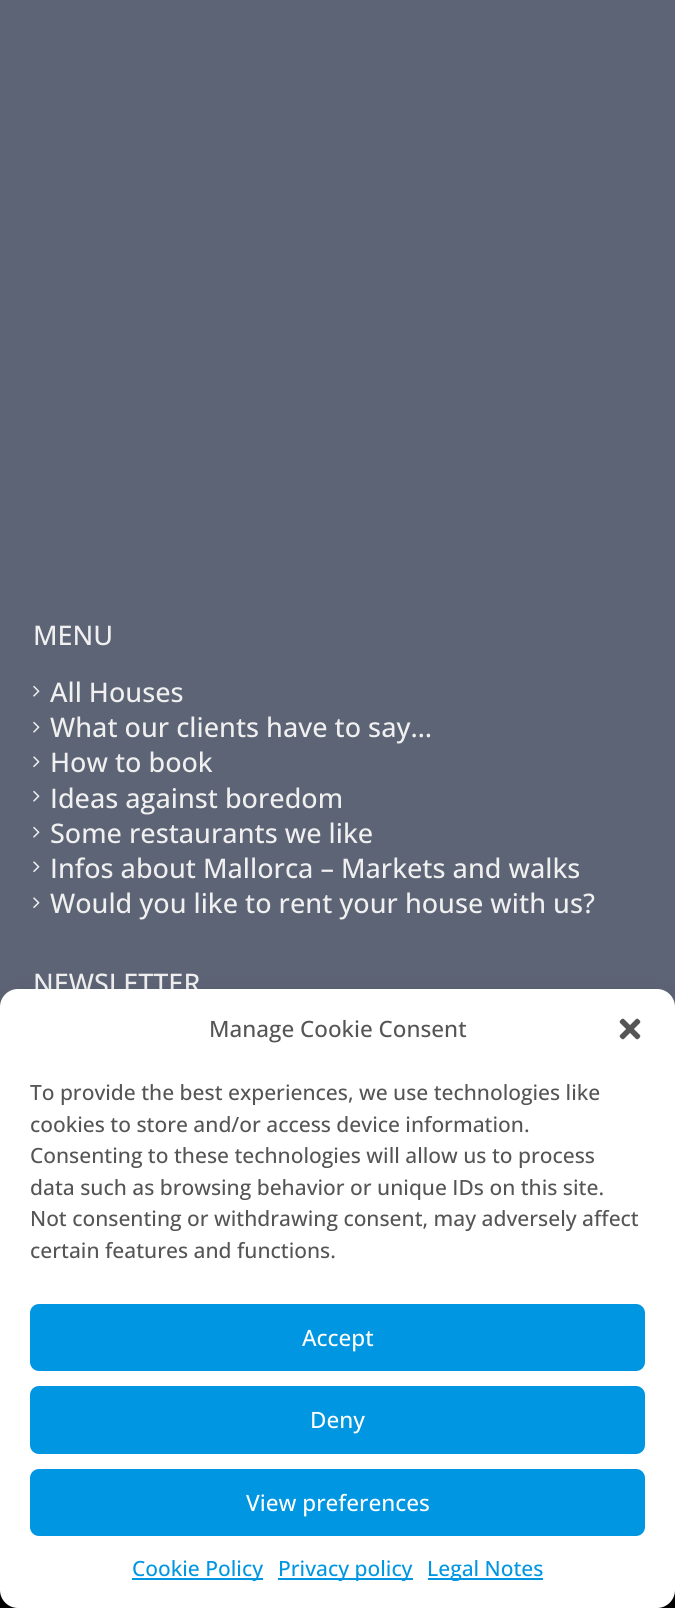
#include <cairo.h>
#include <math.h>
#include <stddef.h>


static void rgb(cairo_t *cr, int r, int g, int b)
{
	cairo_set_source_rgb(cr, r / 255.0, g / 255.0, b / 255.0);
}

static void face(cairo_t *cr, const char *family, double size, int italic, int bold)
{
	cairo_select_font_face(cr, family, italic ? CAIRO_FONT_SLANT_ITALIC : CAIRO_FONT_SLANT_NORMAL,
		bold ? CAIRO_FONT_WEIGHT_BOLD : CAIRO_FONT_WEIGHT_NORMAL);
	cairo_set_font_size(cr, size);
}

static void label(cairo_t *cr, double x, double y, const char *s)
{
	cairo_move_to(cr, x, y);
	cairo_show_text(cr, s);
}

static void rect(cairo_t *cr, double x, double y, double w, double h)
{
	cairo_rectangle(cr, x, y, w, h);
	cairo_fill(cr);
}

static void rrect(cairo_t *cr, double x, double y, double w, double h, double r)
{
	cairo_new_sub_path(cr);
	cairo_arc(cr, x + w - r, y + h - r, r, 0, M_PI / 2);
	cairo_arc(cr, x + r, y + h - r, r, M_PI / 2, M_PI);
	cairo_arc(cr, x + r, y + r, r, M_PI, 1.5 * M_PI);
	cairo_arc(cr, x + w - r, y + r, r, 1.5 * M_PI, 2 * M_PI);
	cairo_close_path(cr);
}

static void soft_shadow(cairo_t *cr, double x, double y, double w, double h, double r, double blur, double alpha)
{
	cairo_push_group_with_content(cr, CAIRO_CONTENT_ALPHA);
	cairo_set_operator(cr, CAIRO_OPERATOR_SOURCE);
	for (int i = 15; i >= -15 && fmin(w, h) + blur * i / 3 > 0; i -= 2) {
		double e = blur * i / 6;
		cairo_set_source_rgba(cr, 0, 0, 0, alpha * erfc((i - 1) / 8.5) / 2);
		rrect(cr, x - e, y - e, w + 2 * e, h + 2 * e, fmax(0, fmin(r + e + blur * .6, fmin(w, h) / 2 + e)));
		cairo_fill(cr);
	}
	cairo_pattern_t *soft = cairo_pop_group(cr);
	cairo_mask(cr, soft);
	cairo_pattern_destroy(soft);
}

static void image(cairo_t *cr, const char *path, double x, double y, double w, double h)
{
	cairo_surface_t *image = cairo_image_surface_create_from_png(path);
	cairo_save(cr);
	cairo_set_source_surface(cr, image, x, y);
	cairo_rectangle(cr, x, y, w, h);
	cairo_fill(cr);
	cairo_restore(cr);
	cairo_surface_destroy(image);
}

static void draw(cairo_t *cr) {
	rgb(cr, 93, 100, 117);
	cairo_paint(cr);
	face(cr, "Open Sans Medium", 27, 0, 0);
	rgb(cr, 240, 240, 240);
	label(cr, 33, 645, "MENU");
	image(cr, "image0.png", 33, 685, 7, 12);
	label(cr, 50, 702, "All Houses");
	image(cr, "image0.png", 33, 721, 7, 12);
	label(cr, 50, 737, "What our clients have to say…");
	image(cr, "image1.png", 33, 756, 7, 12);
	label(cr, 50, 772, "How to book");
	image(cr, "image0.png", 33, 790, 7, 12);
	label(cr, 50, 808, "Ideas against boredom");
	image(cr, "image0.png", 33, 826, 7, 12);
	label(cr, 50, 843, "Some restaurants we like");
	image(cr, "image1.png", 33, 861, 7, 12);
	label(cr, 50, 878, "Infos about Mallorca – Markets and walks");
	image(cr, "image1.png", 33, 897, 7, 12);
	label(cr, 50, 913, "Would you like to rent your house with us?");
	label(cr, 33, 993, "NEWSLETTER");
	rgb(cr, 0, 0, 0);
	rect(cr, 0, 1590, 675, 18);
	rgb(cr, 0, 0, 0);
	soft_shadow(cr, 0, 998, 675, 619, 18, 4.5, 0.23);
	soft_shadow(cr, 0, 1004, 675, 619, 18, 15, 0.19);
	rgb(cr, 255, 255, 255);
	rrect(cr, 0, 989, 675, 619, 18);
	cairo_fill(cr);
	face(cr, "Open Sans Medium", 22.5, 0, 0);
	rgb(cr, 85, 85, 85);
	label(cr, 209, 1037, "Manage Cookie Consent");
	image(cr, "image2.png", 619, 1018, 22, 22);
	face(cr, "Open Sans Medium", 21, 0, 0);
	label(cr, 30, 1100, "To provide the best experiences, we use technologies like");
	label(cr, 30, 1132, "cookies to store and/or access device information.");
	label(cr, 30, 1163, "Consenting to these technologies will allow us to process");
	label(cr, 30, 1195, "data such as browsing behavior or unique IDs on this site.");
	label(cr, 30, 1226, "Not consenting or withdrawing consent, may adversely affect");
	label(cr, 30, 1258, "certain features and functions.");
	rgb(cr, 0, 150, 225);
	rrect(cr, 31, 1305, 613, 65, 8);
	cairo_fill_preserve(cr);
	cairo_stroke(cr);
	face(cr, "Open Sans Medium", 22.5, 0, 0);
	rgb(cr, 255, 255, 255);
	label(cr, 302, 1346, "Accept");
	rgb(cr, 0, 150, 225);
	rrect(cr, 31, 1387, 613, 66, 8);
	cairo_fill_preserve(cr);
	cairo_stroke(cr);
	rgb(cr, 255, 255, 255);
	label(cr, 310, 1428, "Deny");
	rgb(cr, 0, 150, 225);
	rrect(cr, 31, 1470, 613, 65, 8);
	cairo_fill_preserve(cr);
	cairo_stroke(cr);
	rgb(cr, 255, 255, 255);
	label(cr, 246, 1511, "View preferences");
	rgb(cr, 0, 150, 225);
	rect(cr, 132, 1578, 131, 2);
	face(cr, "Open Sans Medium", 21, 0, 0);
	label(cr, 132, 1576, "Cookie Policy");
	rect(cr, 278, 1578, 135, 2);
	label(cr, 278, 1576, "Privacy policy");
	rect(cr, 428, 1578, 115, 2);
	label(cr, 427, 1576, "Legal Notes");
}

int main(void) {
	cairo_surface_t *surface = cairo_image_surface_create(CAIRO_FORMAT_RGB24, 675, 1608);
	cairo_t *cr = cairo_create(surface);
	cairo_font_options_t *options = cairo_font_options_create();
	cairo_font_options_set_hint_metrics(options, CAIRO_HINT_METRICS_OFF);
	cairo_font_options_set_hint_style(options, CAIRO_HINT_STYLE_NONE);
	cairo_set_font_options(cr, options);
	cairo_set_miter_limit(cr, 4);
	draw(cr);
	cairo_surface_write_to_png(surface, "render.png");
	cairo_font_options_destroy(options);
	cairo_destroy(cr);
	cairo_surface_destroy(surface);
	return 0;
}
